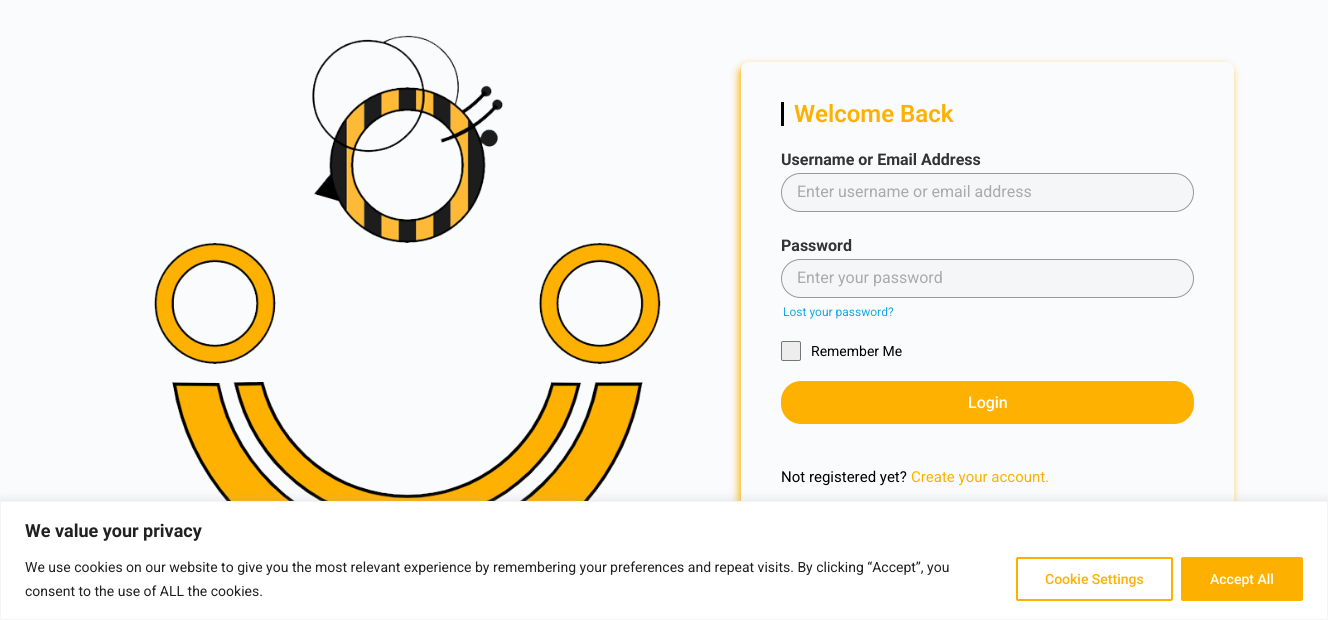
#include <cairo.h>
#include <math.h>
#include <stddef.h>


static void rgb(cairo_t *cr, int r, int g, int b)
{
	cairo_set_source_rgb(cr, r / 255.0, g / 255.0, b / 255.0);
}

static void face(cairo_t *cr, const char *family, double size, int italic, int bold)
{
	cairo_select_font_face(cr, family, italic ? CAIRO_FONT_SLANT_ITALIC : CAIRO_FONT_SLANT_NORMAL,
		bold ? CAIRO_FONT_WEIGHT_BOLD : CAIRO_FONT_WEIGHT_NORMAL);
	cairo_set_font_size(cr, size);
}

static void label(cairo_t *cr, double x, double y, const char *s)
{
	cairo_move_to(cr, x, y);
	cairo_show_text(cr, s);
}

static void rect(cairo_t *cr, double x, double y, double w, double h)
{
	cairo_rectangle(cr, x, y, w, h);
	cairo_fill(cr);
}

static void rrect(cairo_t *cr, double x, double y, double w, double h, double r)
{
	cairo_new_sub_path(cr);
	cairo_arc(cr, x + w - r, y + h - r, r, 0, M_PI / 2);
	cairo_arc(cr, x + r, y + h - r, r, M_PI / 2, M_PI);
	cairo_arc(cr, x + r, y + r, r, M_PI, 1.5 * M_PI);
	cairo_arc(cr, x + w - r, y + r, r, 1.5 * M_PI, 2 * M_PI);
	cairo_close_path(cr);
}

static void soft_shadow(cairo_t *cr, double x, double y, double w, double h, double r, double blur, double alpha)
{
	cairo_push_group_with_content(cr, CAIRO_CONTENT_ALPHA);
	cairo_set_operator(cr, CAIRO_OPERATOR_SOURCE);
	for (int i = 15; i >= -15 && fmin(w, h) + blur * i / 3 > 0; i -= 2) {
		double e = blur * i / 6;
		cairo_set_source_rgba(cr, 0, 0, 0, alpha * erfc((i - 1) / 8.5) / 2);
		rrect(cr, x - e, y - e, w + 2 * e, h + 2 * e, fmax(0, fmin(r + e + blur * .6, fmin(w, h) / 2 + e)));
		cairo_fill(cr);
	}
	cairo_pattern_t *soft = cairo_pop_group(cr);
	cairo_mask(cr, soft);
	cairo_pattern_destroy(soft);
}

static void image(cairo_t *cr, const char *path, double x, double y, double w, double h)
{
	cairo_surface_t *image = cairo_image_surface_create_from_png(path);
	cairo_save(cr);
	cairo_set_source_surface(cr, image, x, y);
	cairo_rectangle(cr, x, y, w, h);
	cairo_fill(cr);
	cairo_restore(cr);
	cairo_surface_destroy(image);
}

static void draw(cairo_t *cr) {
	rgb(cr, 250, 251, 253);
	cairo_paint(cr);
	image(cr, "image0.png", 154, 35, 507, 466);
	cairo_save(cr);
	cairo_set_fill_rule(cr, CAIRO_FILL_RULE_EVEN_ODD);
	cairo_new_path(cr);
	cairo_move_to(cr, 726, 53);
	cairo_line_to(cr, 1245, 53);
	cairo_line_to(cr, 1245, 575);
	cairo_line_to(cr, 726, 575);
	cairo_close_path(cr);
	cairo_move_to(cr, 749, 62);
	cairo_line_to(cr, 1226, 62);
	cairo_curve_to(cr, 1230.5, 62, 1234, 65.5, 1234, 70);
	cairo_line_to(cr, 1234, 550);
	cairo_curve_to(cr, 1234, 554.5, 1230.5, 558, 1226, 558);
	cairo_line_to(cr, 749, 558);
	cairo_curve_to(cr, 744.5, 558, 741, 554.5, 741, 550);
	cairo_line_to(cr, 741, 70);
	cairo_curve_to(cr, 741, 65.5, 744.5, 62, 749, 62);
	cairo_close_path(cr);
	cairo_clip(cr);
	rgb(cr, 254, 177, 0);
	soft_shadow(cr, 739, 66, 493, 496, 8, 4, 1);
	cairo_restore(cr);
	rgb(cr, 0, 0, 0);
	rect(cr, 781, 102, 3, 24);
	face(cr, "Roboto SemiBold", 24, 0, 0);
	rgb(cr, 254, 177, 0);
	label(cr, 794, 122, "Welcome Back");
	face(cr, "Roboto", 16, 0, 1);
	rgb(cr, 51, 51, 51);
	label(cr, 781, 165, "Username or Email Address");
	rgb(cr, 245, 246, 247);
	rrect(cr, 781, 173, 413, 39, 19.5);
	cairo_fill(cr);
	rrect(cr, 781.5, 173.5, 412, 38, 19);
	cairo_set_source_rgba(cr, 0.467, 0.467, 0.443, 0.73);
	cairo_set_line_width(cr, 1);
	cairo_stroke(cr);
	face(cr, "Roboto", 16, 0, 0);
	rgb(cr, 170, 170, 170);
	label(cr, 797, 197, "Enter username or email address");
	face(cr, "Roboto", 16, 0, 1);
	rgb(cr, 51, 51, 51);
	label(cr, 781, 251, "Password");
	rgb(cr, 245, 246, 247);
	rrect(cr, 781, 259, 413, 39, 19.5);
	cairo_fill(cr);
	rrect(cr, 781.5, 259.5, 412, 38, 19);
	cairo_set_source_rgba(cr, 0.467, 0.467, 0.443, 0.73);
	cairo_stroke(cr);
	face(cr, "Roboto", 16, 0, 0);
	rgb(cr, 170, 170, 170);
	label(cr, 797, 283, "Enter your password");
	face(cr, "Roboto", 12, 0, 0);
	rgb(cr, 23, 168, 227);
	label(cr, 783, 316, "Lost your password?");
	rgb(cr, 237, 237, 237);
	rrect(cr, 781.5, 341.5, 19, 19, 1.5);
	cairo_fill_preserve(cr);
	rgb(cr, 119, 119, 113);
	cairo_stroke(cr);
	face(cr, "Roboto", 14, 0, 0);
	rgb(cr, 0, 0, 0);
	label(cr, 811, 356, "Remember Me");
	rgb(cr, 254, 177, 0);
	rrect(cr, 781, 381, 413, 43, 20);
	cairo_fill(cr);
	face(cr, "Roboto Medium", 16, 0, 0);
	rgb(cr, 255, 255, 255);
	label(cr, 968, 408, "Login");
	face(cr, "Roboto", 15, 0, 0);
	rgb(cr, 0, 0, 0);
	label(cr, 781, 482, "Not registered yet?");
	rgb(cr, 254, 177, 0);
	label(cr, 911, 482, "Create your account.");
	rgb(cr, 172, 171, 171);
	soft_shadow(cr, 0, 500, 1328, 119, 0, 5, 0.3);
	rgb(cr, 255, 255, 255);
	cairo_rectangle(cr, 0.5, 501.5, 1327, 118);
	cairo_fill_preserve(cr);
	rgb(cr, 244, 244, 244);
	cairo_stroke(cr);
	face(cr, "Roboto", 18, 0, 1);
	rgb(cr, 33, 33, 33);
	label(cr, 25, 537, "We value your privacy");
	face(cr, "Roboto", 14, 0, 0);
	label(cr, 25, 572, "We use cookies on our website to give you the most relevant experience by remembering your preferences and repeat visits. By clicking “Accept”, you");
	label(cr, 25, 596, "consent to the use of ALL the cookies.");
	rrect(cr, 1017, 558, 155, 42, 1);
	rgb(cr, 253, 176, 0);
	cairo_set_line_width(cr, 2);
	cairo_stroke(cr);
	face(cr, "Roboto Medium", 14, 0, 0);
	rgb(cr, 254, 177, 0);
	label(cr, 1045, 584, "Cookie Settings");
	rgb(cr, 253, 176, 0);
	rrect(cr, 1182, 558, 120, 42, 1);
	cairo_fill_preserve(cr);
	cairo_stroke(cr);
	rgb(cr, 255, 255, 255);
	label(cr, 1210, 584, "Accept All");
}

int main(void) {
	cairo_surface_t *surface = cairo_image_surface_create(CAIRO_FORMAT_RGB24, 1328, 620);
	cairo_t *cr = cairo_create(surface);
	cairo_font_options_t *options = cairo_font_options_create();
	cairo_font_options_set_hint_metrics(options, CAIRO_HINT_METRICS_OFF);
	cairo_font_options_set_hint_style(options, CAIRO_HINT_STYLE_NONE);
	cairo_set_font_options(cr, options);
	cairo_set_miter_limit(cr, 4);
	draw(cr);
	cairo_surface_write_to_png(surface, "render.png");
	cairo_font_options_destroy(options);
	cairo_destroy(cr);
	cairo_surface_destroy(surface);
	return 0;
}
